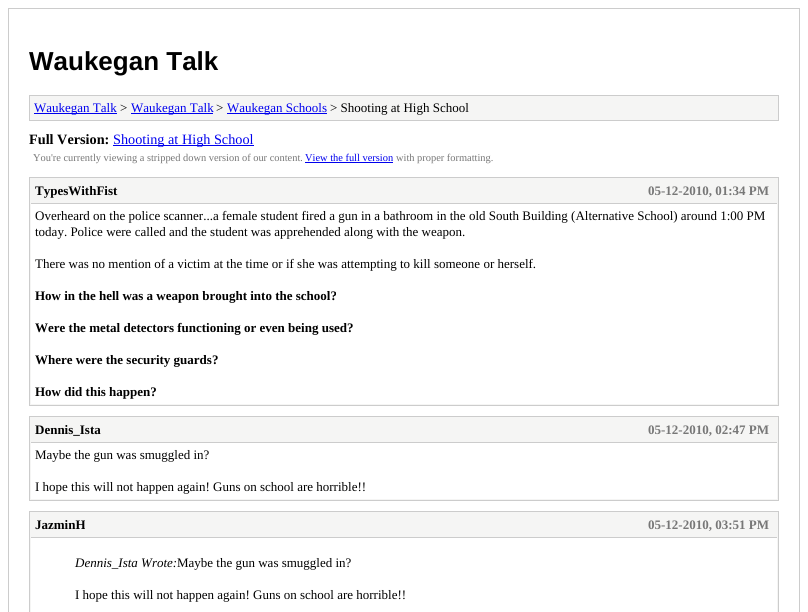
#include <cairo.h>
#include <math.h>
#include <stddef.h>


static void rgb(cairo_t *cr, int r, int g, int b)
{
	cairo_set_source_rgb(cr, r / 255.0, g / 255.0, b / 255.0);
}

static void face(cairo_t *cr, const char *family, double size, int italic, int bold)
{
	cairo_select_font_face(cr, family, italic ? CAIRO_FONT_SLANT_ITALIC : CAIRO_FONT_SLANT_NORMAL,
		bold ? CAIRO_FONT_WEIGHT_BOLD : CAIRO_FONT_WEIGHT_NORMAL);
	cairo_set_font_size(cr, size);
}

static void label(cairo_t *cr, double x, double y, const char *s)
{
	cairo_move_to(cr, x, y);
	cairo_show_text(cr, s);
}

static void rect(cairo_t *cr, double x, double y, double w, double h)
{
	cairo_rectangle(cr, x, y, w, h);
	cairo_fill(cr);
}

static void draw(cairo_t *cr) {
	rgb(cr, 255, 255, 255);
	cairo_paint(cr);
	cairo_rectangle(cr, 8.5, 8.5, 791, 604);
	rgb(cr, 204, 204, 204);
	cairo_set_line_width(cr, 1);
	cairo_stroke(cr);
	face(cr, "Liberation Sans", 26, 0, 1);
	rgb(cr, 0, 0, 0);
	label(cr, 29, 70, "Waukegan Talk");
	rgb(cr, 245, 245, 244);
	cairo_rectangle(cr, 29.5, 95.5, 749, 25);
	cairo_fill_preserve(cr);
	rgb(cr, 204, 204, 204);
	cairo_stroke(cr);
	rgb(cr, 0, 0, 238);
	rect(cr, 34, 113, 83, 1);
	face(cr, "Liberation Serif", 13, 0, 0);
	label(cr, 34, 112, "Waukegan Talk");
	rgb(cr, 0, 0, 0);
	label(cr, 120, 112, ">");
	rgb(cr, 0, 0, 238);
	rect(cr, 131, 113, 82, 1);
	label(cr, 131, 112, "Waukegan Talk");
	rgb(cr, 0, 0, 0);
	label(cr, 216, 112, ">");
	rgb(cr, 0, 0, 238);
	rect(cr, 227, 113, 100, 1);
	label(cr, 227, 112, "Waukegan Schools");
	rgb(cr, 0, 0, 0);
	label(cr, 330, 112, "> Shooting at High School");
	face(cr, "Liberation Serif", 14.25, 0, 1);
	label(cr, 29, 144, "Full Version:");
	rgb(cr, 0, 0, 238);
	rect(cr, 113, 145, 141, 1);
	face(cr, "Liberation Serif", 14.25, 0, 0);
	label(cr, 113, 144, "Shooting at High School");
	face(cr, "Liberation Serif", 10.4, 0, 0);
	rgb(cr, 119, 119, 119);
	label(cr, 33, 161, "You're currently viewing a stripped down version of our content.");
	rgb(cr, 0, 0, 238);
	label(cr, 305, 161, "View the full version");
	rect(cr, 305, 162, 88, 1);
	rgb(cr, 119, 119, 119);
	label(cr, 396, 161, "with proper formatting.");
	rgb(cr, 245, 245, 244);
	cairo_rectangle(cr, 29.5, 177.5, 749, 228);
	cairo_fill_preserve(cr);
	rgb(cr, 204, 204, 204);
	cairo_stroke(cr);
	rect(cr, 31, 203, 746, 1);
	face(cr, "Liberation Serif", 13, 0, 1);
	rgb(cr, 0, 0, 0);
	label(cr, 35, 195, "TypesWithFist");
	rgb(cr, 119, 119, 119);
	label(cr, 648, 195, "05-12-2010, 01:34 PM");
	rgb(cr, 255, 255, 255);
	rect(cr, 31, 204, 746, 200);
	face(cr, "Liberation Serif", 13, 0, 0);
	rgb(cr, 0, 0, 0);
	label(cr, 35, 220, "Overheard on the police scanner...a female student fired a gun in a bathroom in the old South Building (Alternative School) around 1:00 PM");
	label(cr, 35, 236, "today. Police were called and the student was apprehended along with the weapon.");
	label(cr, 35, 268, "There was no mention of a victim at the time or if she was attempting to kill someone or herself.");
	face(cr, "Liberation Serif", 13, 0, 1);
	label(cr, 35, 300, "How in the hell was a weapon brought into the school?");
	label(cr, 35, 332, "Were the metal detectors functioning or even being used?");
	label(cr, 35, 364, "Where were the security guards?");
	label(cr, 35, 396, "How did this happen?");
	rgb(cr, 245, 245, 244);
	cairo_rectangle(cr, 29.5, 416.5, 749, 84);
	cairo_fill_preserve(cr);
	rgb(cr, 204, 204, 204);
	cairo_stroke(cr);
	rect(cr, 31, 442, 746, 1);
	rgb(cr, 0, 0, 0);
	label(cr, 35, 434, "Dennis_Ista");
	rgb(cr, 119, 119, 119);
	label(cr, 648, 434, "05-12-2010, 02:47 PM");
	rgb(cr, 255, 255, 255);
	rect(cr, 31, 443, 746, 56);
	face(cr, "Liberation Serif", 13, 0, 0);
	rgb(cr, 0, 0, 0);
	label(cr, 35, 459, "Maybe the gun was smuggled in?");
	label(cr, 35, 491, "I hope this will not happen again! Guns on school are horrible!!");
	rgb(cr, 245, 245, 244);
	cairo_rectangle(cr, 29.5, 511.5, 749, 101);
	cairo_fill_preserve(cr);
	rgb(cr, 204, 204, 204);
	cairo_stroke(cr);
	rect(cr, 31, 537, 746, 1);
	face(cr, "Liberation Serif", 13, 0, 1);
	rgb(cr, 0, 0, 0);
	label(cr, 35, 529, "JazminH");
	rgb(cr, 119, 119, 119);
	label(cr, 648, 529, "05-12-2010, 03:51 PM");
	rgb(cr, 255, 255, 255);
	rect(cr, 31, 538, 746, 74);
	face(cr, "Liberation Serif", 13, 1, 0);
	rgb(cr, 0, 0, 0);
	label(cr, 75, 567, "Dennis_Ista Wrote:");
	face(cr, "Liberation Serif", 13, 0, 0);
	label(cr, 177, 567, "Maybe the gun was smuggled in?");
	label(cr, 75, 599, "I hope this will not happen again! Guns on school are horrible!!");
}

int main(void) {
	cairo_surface_t *surface = cairo_image_surface_create(CAIRO_FORMAT_RGB24, 808, 612);
	cairo_t *cr = cairo_create(surface);
	cairo_font_options_t *options = cairo_font_options_create();
	cairo_font_options_set_hint_metrics(options, CAIRO_HINT_METRICS_OFF);
	cairo_font_options_set_hint_style(options, CAIRO_HINT_STYLE_NONE);
	cairo_set_font_options(cr, options);
	cairo_set_miter_limit(cr, 4);
	draw(cr);
	cairo_surface_write_to_png(surface, "render.png");
	cairo_font_options_destroy(options);
	cairo_destroy(cr);
	cairo_surface_destroy(surface);
	return 0;
}
